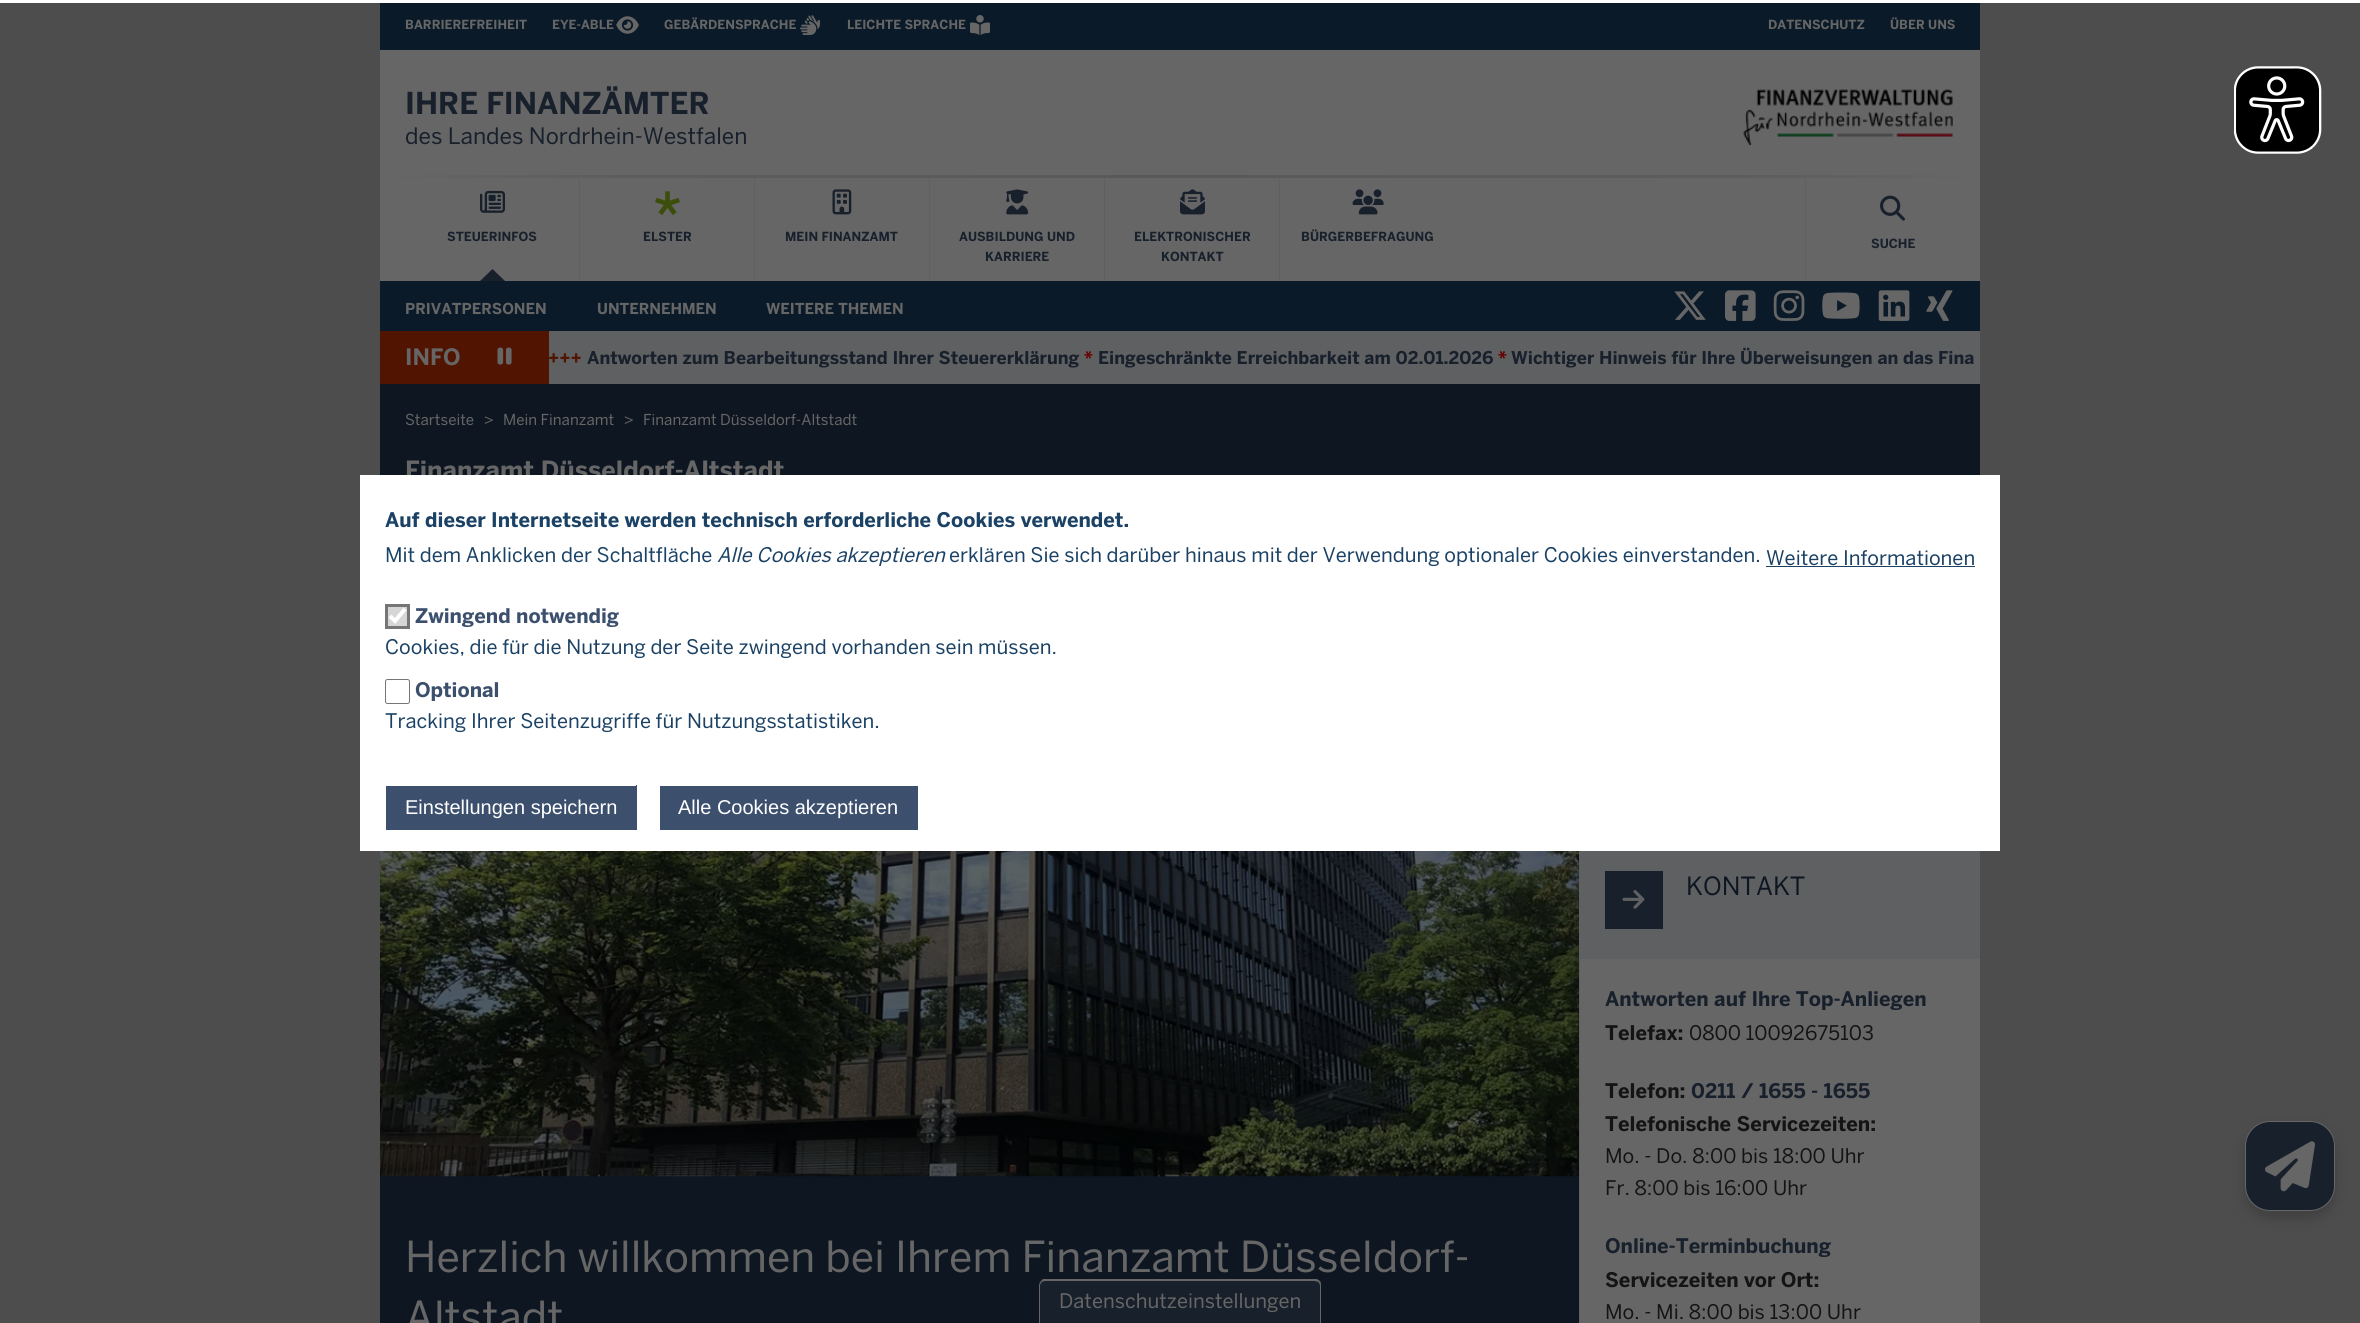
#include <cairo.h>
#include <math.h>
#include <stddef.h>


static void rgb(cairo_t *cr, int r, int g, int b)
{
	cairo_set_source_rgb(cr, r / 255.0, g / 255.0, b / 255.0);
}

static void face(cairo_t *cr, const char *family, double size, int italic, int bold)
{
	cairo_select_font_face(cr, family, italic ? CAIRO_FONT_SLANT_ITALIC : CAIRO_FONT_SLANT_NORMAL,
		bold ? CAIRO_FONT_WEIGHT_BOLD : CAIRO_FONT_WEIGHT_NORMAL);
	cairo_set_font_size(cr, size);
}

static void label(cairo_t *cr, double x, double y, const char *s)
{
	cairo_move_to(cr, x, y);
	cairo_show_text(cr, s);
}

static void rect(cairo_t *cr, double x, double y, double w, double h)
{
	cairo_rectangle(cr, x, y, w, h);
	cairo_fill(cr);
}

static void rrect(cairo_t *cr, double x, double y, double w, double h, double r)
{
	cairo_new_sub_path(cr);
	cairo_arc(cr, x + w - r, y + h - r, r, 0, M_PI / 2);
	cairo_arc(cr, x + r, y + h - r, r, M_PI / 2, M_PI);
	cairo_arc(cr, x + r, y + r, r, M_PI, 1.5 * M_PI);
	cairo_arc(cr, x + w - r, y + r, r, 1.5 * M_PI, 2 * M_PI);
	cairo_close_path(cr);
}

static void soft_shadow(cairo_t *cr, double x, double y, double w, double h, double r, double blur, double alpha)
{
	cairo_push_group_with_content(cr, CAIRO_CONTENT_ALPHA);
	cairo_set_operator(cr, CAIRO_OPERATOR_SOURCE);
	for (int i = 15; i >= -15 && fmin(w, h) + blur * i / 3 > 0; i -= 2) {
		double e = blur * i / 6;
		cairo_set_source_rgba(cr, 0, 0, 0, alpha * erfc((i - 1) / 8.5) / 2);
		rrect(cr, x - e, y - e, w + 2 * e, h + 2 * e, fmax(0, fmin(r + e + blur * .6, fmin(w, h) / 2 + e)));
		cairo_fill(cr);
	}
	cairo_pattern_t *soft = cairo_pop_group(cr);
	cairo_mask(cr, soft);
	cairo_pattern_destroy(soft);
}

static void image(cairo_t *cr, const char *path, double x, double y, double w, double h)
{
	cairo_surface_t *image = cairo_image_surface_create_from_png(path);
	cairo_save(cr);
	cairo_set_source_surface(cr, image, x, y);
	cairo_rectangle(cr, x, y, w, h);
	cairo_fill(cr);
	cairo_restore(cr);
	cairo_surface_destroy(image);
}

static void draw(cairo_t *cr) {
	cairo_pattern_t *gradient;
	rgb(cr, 77, 77, 77);
	cairo_paint(cr);
	rgb(cr, 102, 102, 102);
	rect(cr, 380, 50, 1600, 125);
	rgb(cr, 11, 26, 40);
	rect(cr, 380, 3, 1600, 47);
	face(cr, "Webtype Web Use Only", 12.5, 0, 1);
	rgb(cr, 102, 102, 102);
	label(cr, 405, 29, "BARRIEREFREIHEIT");
	label(cr, 552, 29, "EYE-ABLE");
	image(cr, "image0.png", 616, 16, 23, 18);
	label(cr, 664, 29, "GEBÄRDENSPRACHE");
	image(cr, "image1.png", 800, 15, 20, 20);
	label(cr, 847, 29, "LEICHTE SPRACHE");
	image(cr, "image2.png", 970, 15, 20, 20);
	label(cr, 1768, 29, "DATENSCHUTZ");
	label(cr, 1890, 29, "ÜBER UNS");
	face(cr, "Webtype Web Use Only", 30, 0, 1);
	rgb(cr, 24, 32, 44);
	label(cr, 405, 114, "IHRE FINANZÄMTER");
	face(cr, "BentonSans", 22.5, 0, 0);
	label(cr, 405, 144, "des Landes Nordrhein-Westfalen");
	image(cr, "image3.png", 1743, 89, 210, 56);
	gradient = cairo_pattern_create_linear(380, 228, 1980, 228);
	cairo_pattern_add_color_stop_rgba(gradient, 0, 0.4, 0.4, 0.4, 1);
	cairo_pattern_add_color_stop_rgba(gradient, 0.15, 0.365, 0.365, 0.365, 1);
	cairo_pattern_add_color_stop_rgba(gradient, 0.5, 0.349, 0.349, 0.349, 1);
	cairo_pattern_add_color_stop_rgba(gradient, 0.85, 0.365, 0.365, 0.365, 1);
	cairo_pattern_add_color_stop_rgba(gradient, 1, 0.4, 0.4, 0.4, 1);
	cairo_set_source(cr, gradient);
	cairo_pattern_destroy(gradient);
	rect(cr, 380, 175, 1600, 3);
	rgb(cr, 102, 102, 102);
	rect(cr, 380, 178, 1600, 103);
	rgb(cr, 94, 96, 98);
	rect(cr, 579, 178, 1, 103);
	image(cr, "image4.png", 480, 190, 25, 23);
	face(cr, "Webtype Web Use Only", 12.5, 0, 1);
	rgb(cr, 24, 32, 44);
	label(cr, 447, 241, "STEUERINFOS");
	cairo_new_path(cr);
	cairo_move_to(cr, 505, 281);
	cairo_line_to(cr, 480, 281);
	cairo_line_to(cr, 492.5, 269);
	cairo_close_path(cr);
	cairo_fill(cr);
	rgb(cr, 94, 96, 98);
	rect(cr, 754, 178, 1, 103);
	image(cr, "image5.png", 655, 191, 25, 25);
	rgb(cr, 24, 32, 44);
	label(cr, 643, 241, "ELSTER");
	rgb(cr, 94, 96, 98);
	rect(cr, 929, 178, 1, 103);
	image(cr, "image6.png", 832, 189, 20, 26);
	rgb(cr, 24, 32, 44);
	label(cr, 785, 241, "MEIN FINANZAMT");
	rgb(cr, 94, 96, 98);
	rect(cr, 1104, 178, 1, 103);
	image(cr, "image7.png", 1006, 189, 23, 26);
	rgb(cr, 24, 32, 44);
	label(cr, 959, 241, "AUSBILDUNG UND");
	label(cr, 985, 261, "KARRIERE");
	rgb(cr, 94, 96, 98);
	rect(cr, 1279, 178, 1, 103);
	image(cr, "image8.png", 1180, 189, 25, 26);
	rgb(cr, 24, 32, 44);
	label(cr, 1134, 241, "ELEKTRONISCHER");
	label(cr, 1161, 261, "KONTAKT");
	image(cr, "image9.png", 1352, 189, 32, 26);
	label(cr, 1301, 241, "BÜRGERBEFRAGUNG");
	rgb(cr, 94, 96, 98);
	rect(cr, 1805, 178, 1, 103);
	image(cr, "image10.png", 1880, 195, 25, 26);
	rgb(cr, 24, 32, 44);
	label(cr, 1871, 248, "SUCHE");
	rgb(cr, 11, 26, 40);
	rect(cr, 380, 281, 1600, 50);
	face(cr, "Webtype Web Use Only", 15, 0, 1);
	rgb(cr, 102, 102, 102);
	label(cr, 405, 314, "PRIVATPERSONEN");
	label(cr, 597, 314, "UNTERNEHMEN");
	label(cr, 766, 314, "WEITERE THEMEN");
	image(cr, "image11.png", 1674, 291, 32, 29);
	image(cr, "image12.png", 1725, 290, 31, 31);
	image(cr, "image13.png", 1773, 290, 32, 31);
	image(cr, "image14.png", 1822, 292, 38, 27);
	image(cr, "image15.png", 1878, 290, 32, 31);
	image(cr, "image16.png", 1926, 290, 27, 31);
	rect(cr, 1580, 959, 400, 364);
	rgb(cr, 94, 96, 98);
	rect(cr, 549, 331, 1431, 53);
	rgb(cr, 80, 20, 0);
	rect(cr, 380, 331, 169, 53);
	face(cr, "Webtype Web Use Only", 22.5, 0, 1);
	rgb(cr, 102, 102, 102);
	label(cr, 405, 365, "INFO");
	image(cr, "image17.png", 497, 347, 15, 18);
	face(cr, "Webtype Web Use Only", 17.5, 0, 1);
	rgb(cr, 80, 20, 0);
	label(cr, 548, 364, "+++");
	rgb(cr, 24, 32, 44);
	label(cr, 587, 364, "Antworten zum Bearbeitungsstand Ihrer Steuererklärung");
	rgb(cr, 102, 0, 0);
	label(cr, 1084, 364, "*");
	rgb(cr, 24, 32, 44);
	label(cr, 1098, 364, "Eingeschränkte Erreichbarkeit am 02.01.2026");
	rgb(cr, 102, 0, 0);
	label(cr, 1498, 364, "*");
	rgb(cr, 24, 32, 44);
	label(cr, 1511, 364, "Wichtiger Hinweis für Ihre Überweisungen an das Fina");
	rgb(cr, 14, 22, 34);
	rect(cr, 380, 384, 1600, 91);
	face(cr, "BentonSans", 15, 0, 0);
	rgb(cr, 102, 102, 102);
	label(cr, 405, 425, "Startseite");
	label(cr, 484, 425, ">");
	label(cr, 503, 425, "Mein Finanzamt");
	label(cr, 624, 425, ">");
	label(cr, 643, 425, "Finanzamt Düsseldorf-Altstadt");
	face(cr, "Webtype Web Use Only", 25, 0, 1);
	label(cr, 405, 479, "Finanzamt Düsseldorf-Altstadt");
	rgb(cr, 94, 96, 98);
	rect(cr, 1579, 851, 1, 472);
	rgb(cr, 14, 22, 34);
	rect(cr, 380, 851, 1199, 472);
	image(cr, "image18.png", 380, 851, 1199, 326);
	face(cr, "BentonSans", 42.5, 0, 0);
	rgb(cr, 102, 102, 102);
	label(cr, 405, 1272, "Herzlich willkommen bei Ihrem Finanzamt Düsseldorf-");
	label(cr, 405, 1332, "Altstadt");
	rgb(cr, 94, 96, 98);
	rect(cr, 1580, 851, 400, 108);
	rgb(cr, 24, 32, 44);
	rect(cr, 1605, 871, 58, 58);
	image(cr, "image19.png", 1622, 890, 23, 19);
	face(cr, "BentonSans", 25, 0, 0);
	rgb(cr, 14, 22, 34);
	label(cr, 1686, 895, "KONTAKT");
	face(cr, "Webtype Web Use Only", 20, 0, 1);
	rgb(cr, 24, 32, 44);
	label(cr, 1605, 1006, "Antworten auf Ihre Top-Anliegen");
	rgb(cr, 20, 20, 20);
	label(cr, 1605, 1040, "Telefax:");
	face(cr, "BentonSans", 20, 0, 0);
	label(cr, 1689, 1040, "0800 10092675103");
	face(cr, "Webtype Web Use Only", 20, 0, 1);
	label(cr, 1605, 1098, "Telefon:");
	rgb(cr, 24, 32, 44);
	label(cr, 1691, 1098, "0211 / 1655 - 1655");
	rgb(cr, 20, 20, 20);
	label(cr, 1605, 1131, "Telefonische Servicezeiten:");
	face(cr, "BentonSans", 20, 0, 0);
	label(cr, 1605, 1163, "Mo. - Do. 8:00 bis 18:00 Uhr");
	label(cr, 1605, 1195, "Fr. 8:00 bis 16:00 Uhr");
	face(cr, "Webtype Web Use Only", 20, 0, 1);
	rgb(cr, 24, 32, 44);
	label(cr, 1605, 1253, "Online-Terminbuchung");
	rgb(cr, 20, 20, 20);
	label(cr, 1605, 1287, "Servicezeiten vor Ort:");
	face(cr, "BentonSans", 20, 0, 0);
	label(cr, 1605, 1319, "Mo. - Mi. 8:00 bis 13:00 Uhr");
	rgb(cr, 64, 64, 64);
	soft_shadow(cr, 2244, 1126, 92, 93, 26, 6, 1);
	rgb(cr, 24, 32, 44);
	rrect(cr, 2245.5, 1121.5, 89, 89, 24.5);
	cairo_fill_preserve(cr);
	rgb(cr, 102, 102, 102);
	cairo_set_line_width(cr, 1);
	cairo_stroke(cr);
	image(cr, "image20.png", 2265, 1141, 50, 51);
	image(cr, "image21.png", 2234, 66, 88, 88);
	rgb(cr, 255, 255, 255);
	rect(cr, 0, 0, 2360, 3);
	rect(cr, 360, 475, 1640, 376);
	face(cr, "Webtype Web Use Only", 20, 0, 1);
	rgb(cr, 27, 66, 101);
	label(cr, 385, 527, "Auf dieser Internetseite werden technisch erforderliche Cookies verwendet.");
	face(cr, "BentonSans", 20, 0, 0);
	label(cr, 385, 562, "Mit dem Anklicken der Schaltfläche");
	face(cr, "BentonSans", 20, 1, 0);
	label(cr, 717, 562, "Alle Cookies akzeptieren");
	face(cr, "BentonSans", 20, 0, 0);
	label(cr, 949, 562, "erklären Sie sich darüber hinaus mit der Verwendung optionaler Cookies einverstanden.");
	label(cr, 1766, 565, "Weitere Informationen");
	rect(cr, 1766, 566, 209, 1);
	rgb(cr, 214, 214, 214);
	rect(cr, 388, 607, 19, 19);
	cairo_new_path(cr);
	cairo_move_to(cr, 390, 616);
	cairo_line_to(cr, 395, 621);
	cairo_line_to(cr, 405, 609);
	rgb(cr, 255, 255, 255);
	cairo_set_line_width(cr, 4);
	cairo_stroke(cr);
	cairo_rectangle(cr, 386.5, 605.5, 22, 22);
	rgb(cr, 118, 118, 118);
	cairo_set_line_width(cr, 3);
	cairo_stroke(cr);
	face(cr, "Webtype Web Use Only", 20, 0, 1);
	rgb(cr, 60, 80, 110);
	label(cr, 415, 623, "Zwingend notwendig");
	face(cr, "BentonSans", 20, 0, 0);
	rgb(cr, 27, 66, 101);
	label(cr, 385, 654, "Cookies, die für die Nutzung der Seite zwingend vorhanden sein müssen.");
	rrect(cr, 385.5, 679.5, 24, 24, 2);
	rgb(cr, 118, 118, 118);
	cairo_set_line_width(cr, 1);
	cairo_stroke(cr);
	face(cr, "Webtype Web Use Only", 20, 0, 1);
	rgb(cr, 60, 80, 110);
	label(cr, 415, 697, "Optional");
	face(cr, "BentonSans", 20, 0, 0);
	rgb(cr, 27, 66, 101);
	label(cr, 385, 728, "Tracking Ihrer Seitenzugriffe für Nutzungsstatistiken.");
	rgb(cr, 60, 80, 110);
	rect(cr, 386, 785, 251, 45);
	rgb(cr, 255, 255, 255);
	rect(cr, 386, 785, 250, 1);
	face(cr, "Liberation Sans", 20, 0, 0);
	label(cr, 405, 814, "Einstellungen speichern");
	rgb(cr, 60, 80, 110);
	rect(cr, 660, 786, 258, 44);
	rgb(cr, 255, 255, 255);
	label(cr, 678, 814, "Alle Cookies akzeptieren");
	rgb(cr, 24, 32, 44);
	cairo_new_path(cr);
	cairo_move_to(cr, 1045, 1279);
	cairo_line_to(cr, 1315, 1279);
	cairo_curve_to(cr, 1318.5, 1279, 1321, 1281.5, 1321, 1285);
	cairo_line_to(cr, 1321, 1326);
	cairo_line_to(cr, 1039, 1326);
	cairo_line_to(cr, 1039, 1285);
	cairo_curve_to(cr, 1039, 1281.5, 1041.5, 1279, 1045, 1279);
	cairo_close_path(cr);
	cairo_fill(cr);
	rgb(cr, 102, 102, 102);
	cairo_new_path(cr);
	cairo_move_to(cr, 1045, 1281);
	cairo_line_to(cr, 1042, 1282);
	cairo_line_to(cr, 1041, 1281);
	cairo_line_to(cr, 1043, 1279);
	cairo_line_to(cr, 1317, 1279);
	cairo_curve_to(cr, 1318, 1280, 1319, 1280, 1320, 1281);
	cairo_line_to(cr, 1318, 1282);
	cairo_line_to(cr, 1315, 1281);
	cairo_close_path(cr);
	cairo_fill(cr);
	cairo_new_path(cr);
	cairo_move_to(cr, 1320, 1281);
	cairo_curve_to(cr, 1321, 1282, 1321, 1284, 1321, 1286);
	cairo_line_to(cr, 1321, 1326);
	cairo_line_to(cr, 1320, 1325);
	cairo_line_to(cr, 1320, 1286);
	cairo_curve_to(cr, 1320, 1284, 1319, 1283, 1318, 1282);
	cairo_close_path(cr);
	cairo_fill(cr);
	cairo_new_path(cr);
	cairo_move_to(cr, 1039, 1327);
	cairo_line_to(cr, 1039, 1286);
	cairo_curve_to(cr, 1039, 1284, 1040, 1282, 1041, 1281);
	cairo_line_to(cr, 1042, 1282);
	cairo_curve_to(cr, 1041, 1283, 1040, 1284, 1040, 1286);
	cairo_line_to(cr, 1040, 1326);
	cairo_close_path(cr);
	cairo_fill(cr);
	face(cr, "BentonSans", 20, 0, 0);
	label(cr, 1059, 1308, "Datenschutzeinstellungen");
}

int main(void) {
	cairo_surface_t *surface = cairo_image_surface_create(CAIRO_FORMAT_RGB24, 2360, 1323);
	cairo_t *cr = cairo_create(surface);
	cairo_font_options_t *options = cairo_font_options_create();
	cairo_font_options_set_hint_metrics(options, CAIRO_HINT_METRICS_OFF);
	cairo_font_options_set_hint_style(options, CAIRO_HINT_STYLE_NONE);
	cairo_set_font_options(cr, options);
	cairo_set_miter_limit(cr, 4);
	draw(cr);
	cairo_surface_write_to_png(surface, "render.png");
	cairo_font_options_destroy(options);
	cairo_destroy(cr);
	cairo_surface_destroy(surface);
	return 0;
}
